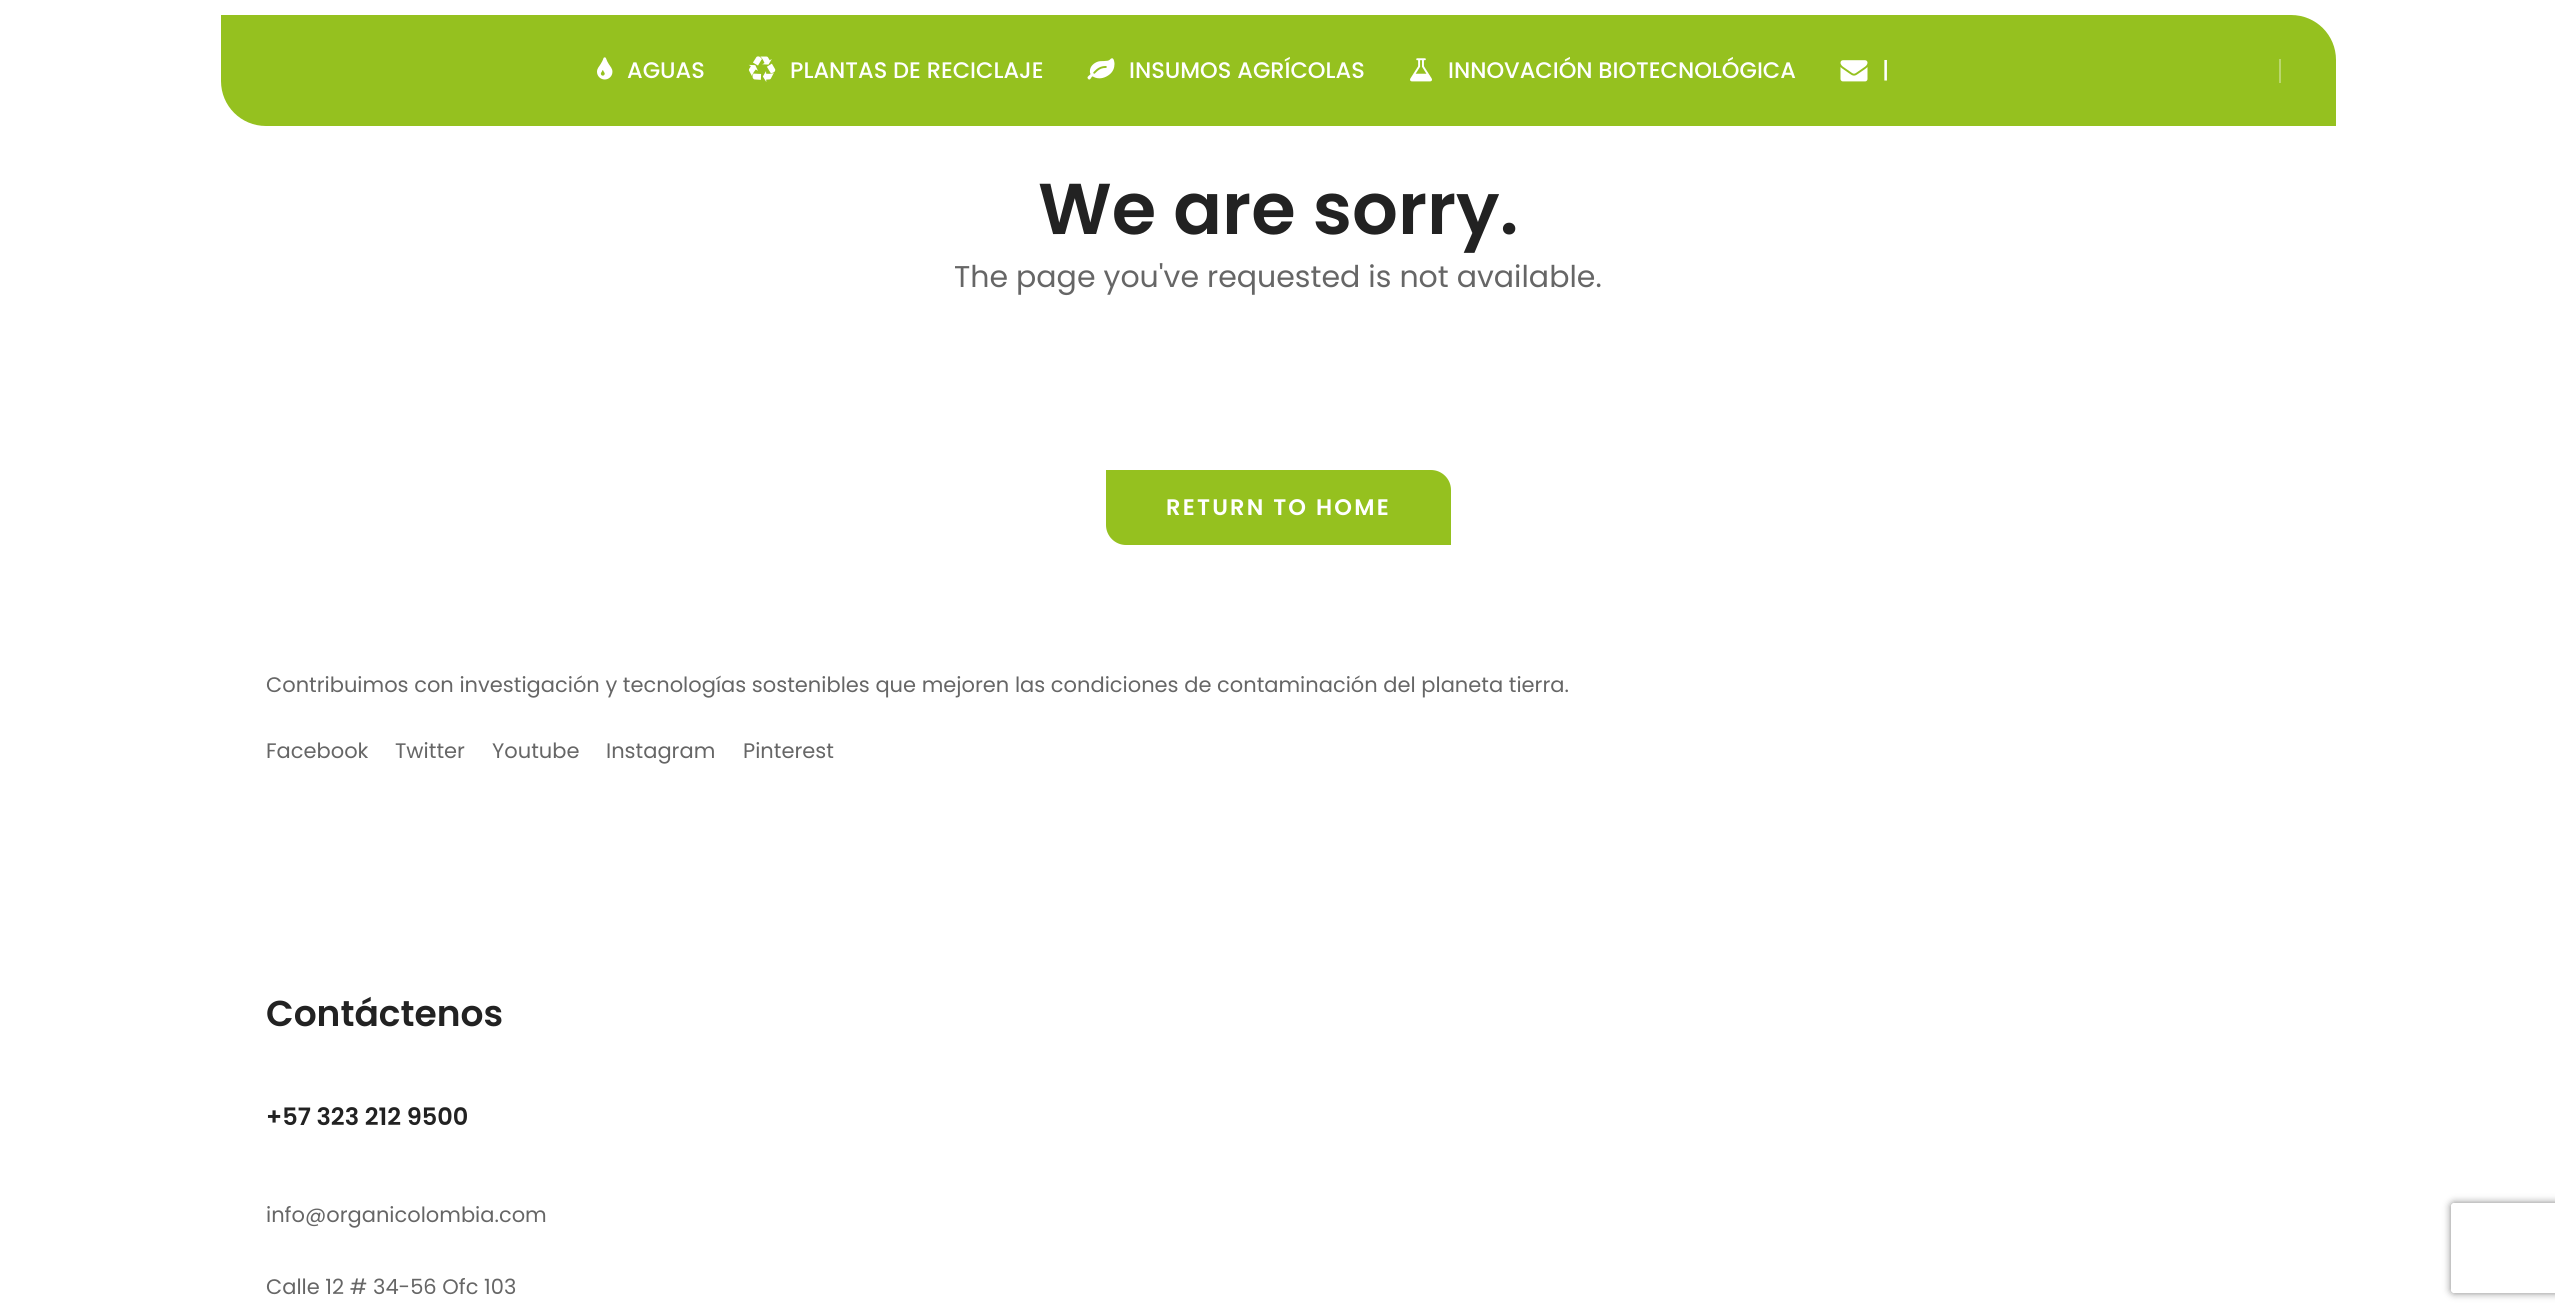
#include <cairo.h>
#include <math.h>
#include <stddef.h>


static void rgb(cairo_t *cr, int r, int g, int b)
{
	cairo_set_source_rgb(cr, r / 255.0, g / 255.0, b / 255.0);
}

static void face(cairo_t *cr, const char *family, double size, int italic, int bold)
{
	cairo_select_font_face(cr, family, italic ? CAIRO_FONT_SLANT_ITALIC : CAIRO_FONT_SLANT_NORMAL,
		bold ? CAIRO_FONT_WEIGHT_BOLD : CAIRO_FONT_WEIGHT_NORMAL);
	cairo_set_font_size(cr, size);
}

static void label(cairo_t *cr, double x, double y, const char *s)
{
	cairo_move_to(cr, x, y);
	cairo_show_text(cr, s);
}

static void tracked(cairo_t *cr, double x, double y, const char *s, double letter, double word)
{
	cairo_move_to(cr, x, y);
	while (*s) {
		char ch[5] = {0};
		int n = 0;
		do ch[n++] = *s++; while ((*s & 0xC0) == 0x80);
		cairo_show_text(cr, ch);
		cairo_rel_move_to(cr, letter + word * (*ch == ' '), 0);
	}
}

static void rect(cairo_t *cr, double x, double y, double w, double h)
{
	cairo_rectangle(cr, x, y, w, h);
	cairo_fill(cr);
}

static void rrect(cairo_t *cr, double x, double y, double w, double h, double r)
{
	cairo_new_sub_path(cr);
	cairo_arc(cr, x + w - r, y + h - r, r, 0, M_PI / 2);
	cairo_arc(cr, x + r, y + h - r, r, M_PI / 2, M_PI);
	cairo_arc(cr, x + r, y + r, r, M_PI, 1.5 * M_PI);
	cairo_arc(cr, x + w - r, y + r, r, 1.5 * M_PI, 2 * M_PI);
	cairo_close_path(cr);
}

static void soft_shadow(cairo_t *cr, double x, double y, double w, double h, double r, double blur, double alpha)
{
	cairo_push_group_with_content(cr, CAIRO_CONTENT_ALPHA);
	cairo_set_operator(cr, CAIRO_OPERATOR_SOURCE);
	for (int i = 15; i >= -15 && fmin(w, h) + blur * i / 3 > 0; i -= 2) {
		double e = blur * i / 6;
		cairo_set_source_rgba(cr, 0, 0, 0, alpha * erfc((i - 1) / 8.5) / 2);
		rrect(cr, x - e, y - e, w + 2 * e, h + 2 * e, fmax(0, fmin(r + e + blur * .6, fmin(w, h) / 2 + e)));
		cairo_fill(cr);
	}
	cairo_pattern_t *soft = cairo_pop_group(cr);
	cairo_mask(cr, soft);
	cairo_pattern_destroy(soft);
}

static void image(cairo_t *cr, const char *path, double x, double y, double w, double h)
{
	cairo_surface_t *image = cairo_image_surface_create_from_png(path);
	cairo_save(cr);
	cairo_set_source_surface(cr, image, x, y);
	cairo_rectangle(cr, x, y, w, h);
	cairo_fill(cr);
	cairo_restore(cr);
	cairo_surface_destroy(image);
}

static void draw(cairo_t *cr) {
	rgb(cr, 255, 255, 255);
	cairo_paint(cr);
	rgb(cr, 149, 193, 31);
	cairo_new_path(cr);
	cairo_move_to(cr, 221, 15);
	cairo_line_to(cr, 2291, 15);
	cairo_curve_to(cr, 2316, 15, 2336, 35, 2336, 60);
	cairo_line_to(cr, 2336, 126);
	cairo_line_to(cr, 266, 126);
	cairo_curve_to(cr, 241, 126, 221, 106, 221, 81);
	cairo_close_path(cr);
	cairo_fill(cr);
	image(cr, "image0.png", 597, 57, 16, 23);
	face(cr, "Poppins Medium", 22.5, 0, 0);
	rgb(cr, 255, 255, 255);
	label(cr, 627, 78, "AGUAS");
	image(cr, "image1.png", 748, 56, 28, 26);
	label(cr, 790, 78, "PLANTAS DE RECICLAJE");
	image(cr, "image2.png", 1087, 58, 28, 22);
	label(cr, 1129, 78, "INSUMOS AGRÍCOLAS");
	image(cr, "image3.png", 1410, 58, 22, 24);
	label(cr, 1448, 78, "INNOVACIÓN BIOTECNOLÓGICA");
	image(cr, "image4.png", 1840, 60, 28, 22);
	label(cr, 1882, 78, "|");
	rgb(cr, 186, 215, 109);
	rect(cr, 2279, 59, 2, 24);
	face(cr, "Poppins SemiBold", 72, 0, 0);
	rgb(cr, 34, 34, 34);
	label(cr, 1038, 234, "We are sorry.");
	face(cr, "Poppins", 30, 0, 0);
	rgb(cr, 102, 102, 102);
	label(cr, 954, 287, "The page you've requested is not available.");
	rgb(cr, 149, 193, 31);
	cairo_new_path(cr);
	cairo_move_to(cr, 1106, 470);
	cairo_line_to(cr, 1431, 470);
	cairo_curve_to(cr, 1442, 470, 1451, 479, 1451, 490);
	cairo_line_to(cr, 1451, 545);
	cairo_line_to(cr, 1126, 545);
	cairo_curve_to(cr, 1115, 545, 1106, 536, 1106, 525);
	cairo_close_path(cr);
	cairo_fill(cr);
	face(cr, "Poppins SemiBold", 22.5, 0, 0);
	rgb(cr, 255, 255, 255);
	tracked(cr, 1166, 515, "RETURN TO HOME", 2.25, 0);
	face(cr, "Poppins", 21, 0, 0);
	rgb(cr, 102, 102, 102);
	label(cr, 266, 692, "Contribuimos con investigación y tecnologías sostenibles que mejoren las condiciones de contaminación del planeta tierra.");
	label(cr, 266, 758, "Facebook");
	label(cr, 395, 758, "Twitter");
	label(cr, 492, 758, "Youtube");
	label(cr, 606, 758, "Instagram");
	label(cr, 743, 758, "Pinterest");
	face(cr, "Poppins SemiBold", 36, 0, 0);
	rgb(cr, 34, 34, 34);
	label(cr, 266, 1026, "Contáctenos");
	face(cr, "Poppins SemiBold", 24, 0, 0);
	label(cr, 266, 1125, "+57 323 212 9500");
	face(cr, "Poppins", 21, 0, 0);
	rgb(cr, 102, 102, 102);
	label(cr, 266, 1222, "info@organicolombia.com");
	label(cr, 266, 1294, "Calle 12 # 34-56 Ofc 103");
	cairo_save(cr);
	cairo_set_fill_rule(cr, CAIRO_FILL_RULE_EVEN_ODD);
	cairo_new_path(cr);
	cairo_move_to(cr, 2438, 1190);
	cairo_line_to(cr, 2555, 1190);
	cairo_line_to(cr, 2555, 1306);
	cairo_line_to(cr, 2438, 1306);
	cairo_close_path(cr);
	cairo_move_to(cr, 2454, 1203);
	cairo_line_to(cr, 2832, 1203);
	cairo_curve_to(cr, 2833.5, 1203, 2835, 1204.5, 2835, 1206);
	cairo_line_to(cr, 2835, 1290);
	cairo_curve_to(cr, 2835, 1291.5, 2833.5, 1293, 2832, 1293);
	cairo_line_to(cr, 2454, 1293);
	cairo_curve_to(cr, 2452.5, 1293, 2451, 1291.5, 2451, 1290);
	cairo_line_to(cr, 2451, 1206);
	cairo_curve_to(cr, 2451, 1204.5, 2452.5, 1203, 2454, 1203);
	cairo_close_path(cr);
	cairo_clip(cr);
	rgb(cr, 128, 128, 128);
	soft_shadow(cr, 2451, 1203, 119, 90, 3, 4, 1);
	cairo_restore(cr);
}

int main(void) {
	cairo_surface_t *surface = cairo_image_surface_create(CAIRO_FORMAT_RGB24, 2555, 1313);
	cairo_t *cr = cairo_create(surface);
	cairo_font_options_t *options = cairo_font_options_create();
	cairo_font_options_set_hint_metrics(options, CAIRO_HINT_METRICS_OFF);
	cairo_font_options_set_hint_style(options, CAIRO_HINT_STYLE_NONE);
	cairo_set_font_options(cr, options);
	cairo_set_miter_limit(cr, 4);
	draw(cr);
	cairo_surface_write_to_png(surface, "render.png");
	cairo_font_options_destroy(options);
	cairo_destroy(cr);
	cairo_surface_destroy(surface);
	return 0;
}
